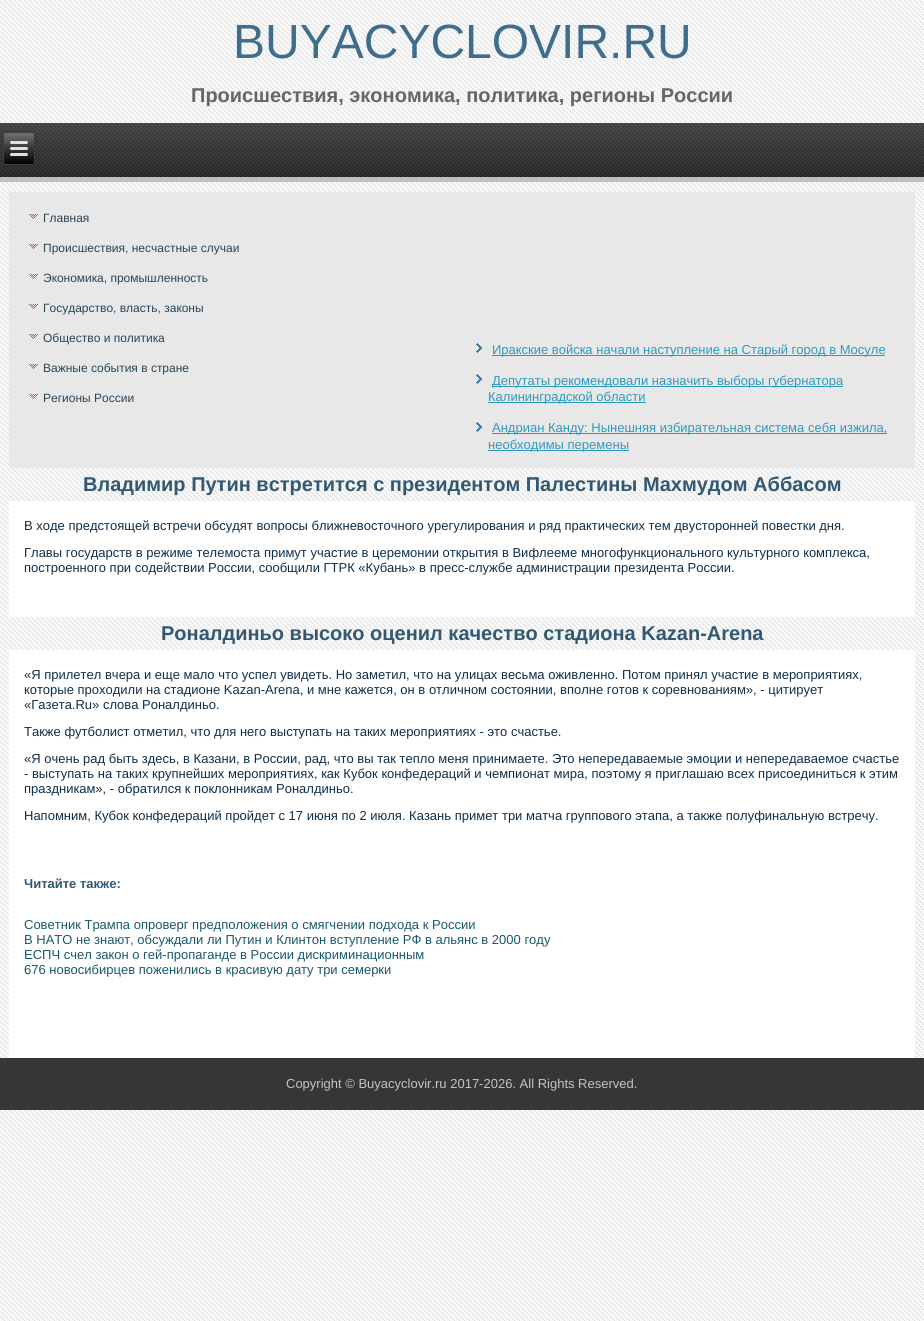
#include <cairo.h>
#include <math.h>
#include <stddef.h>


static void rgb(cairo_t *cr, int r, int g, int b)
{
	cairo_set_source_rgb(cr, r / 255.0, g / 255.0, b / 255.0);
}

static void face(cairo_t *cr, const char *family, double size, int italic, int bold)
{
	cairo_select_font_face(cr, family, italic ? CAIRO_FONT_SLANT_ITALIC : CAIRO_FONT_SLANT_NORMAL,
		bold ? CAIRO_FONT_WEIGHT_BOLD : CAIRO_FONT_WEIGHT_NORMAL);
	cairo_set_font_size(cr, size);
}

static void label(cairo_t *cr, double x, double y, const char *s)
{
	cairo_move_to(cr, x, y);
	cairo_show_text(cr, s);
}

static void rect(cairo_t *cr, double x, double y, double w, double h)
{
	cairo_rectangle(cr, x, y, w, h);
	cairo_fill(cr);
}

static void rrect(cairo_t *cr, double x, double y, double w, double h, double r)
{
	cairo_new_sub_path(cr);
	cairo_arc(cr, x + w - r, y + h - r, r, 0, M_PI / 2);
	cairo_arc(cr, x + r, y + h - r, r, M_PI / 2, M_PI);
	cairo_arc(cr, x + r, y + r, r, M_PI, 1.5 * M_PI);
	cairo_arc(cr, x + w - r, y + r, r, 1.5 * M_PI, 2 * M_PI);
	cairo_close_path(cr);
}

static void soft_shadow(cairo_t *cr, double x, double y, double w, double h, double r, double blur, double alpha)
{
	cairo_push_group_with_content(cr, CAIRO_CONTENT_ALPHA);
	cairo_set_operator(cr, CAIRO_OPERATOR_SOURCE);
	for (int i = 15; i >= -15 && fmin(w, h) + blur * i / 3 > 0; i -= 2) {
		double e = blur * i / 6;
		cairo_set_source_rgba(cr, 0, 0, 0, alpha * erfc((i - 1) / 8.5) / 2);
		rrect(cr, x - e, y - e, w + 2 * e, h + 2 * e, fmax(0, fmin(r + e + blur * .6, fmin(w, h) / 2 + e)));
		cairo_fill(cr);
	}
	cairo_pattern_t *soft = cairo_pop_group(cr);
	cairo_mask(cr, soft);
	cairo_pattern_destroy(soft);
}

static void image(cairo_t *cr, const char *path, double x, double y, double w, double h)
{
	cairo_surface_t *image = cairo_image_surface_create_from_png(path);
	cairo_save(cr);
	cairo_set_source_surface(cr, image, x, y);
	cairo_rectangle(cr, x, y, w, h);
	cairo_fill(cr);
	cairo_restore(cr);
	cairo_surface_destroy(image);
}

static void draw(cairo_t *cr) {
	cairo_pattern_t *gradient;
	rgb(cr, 250, 250, 250);
	cairo_paint(cr);
	image(cr, "image0.png", 0, 0, 924, 1321);
	face(cr, "Liberation Sans", 48, 0, 0);
	rgb(cr, 63, 110, 141);
	label(cr, 233, 58, "BUYACYCLOVIR.RU");
	face(cr, "Liberation Sans", 20, 0, 1);
	rgb(cr, 102, 102, 102);
	label(cr, 191, 102, "Происшествия, экономика, политика, регионы России");
	image(cr, "image1.png", 0, 123, 924, 54);
	rgb(cr, 191, 191, 191);
	rect(cr, 0, 177, 924, 5);
	rgb(cr, 0, 0, 0);
	soft_shadow(cr, 3, 132, 32, 33, 3, 1.5, 0.2);
	cairo_save(cr);
	rrect(cr, 3, 132, 32, 33, 3);
	cairo_clip(cr);
	gradient = cairo_pattern_create_linear(19, 133, 19, 164);
	cairo_pattern_add_color_stop_rgba(gradient, 0, 0.439, 0.439, 0.439, 1);
	cairo_pattern_add_color_stop_rgba(gradient, 1, 0, 0, 0, 1);
	cairo_set_source(cr, gradient);
	cairo_pattern_destroy(gradient);
	rect(cr, 3, 133, 32, 31);
	cairo_restore(cr);
	rrect(cr, 3.5, 132.5, 31, 32, 2.5);
	rgb(cr, 64, 64, 64);
	cairo_set_line_width(cr, 1);
	cairo_stroke(cr);
	rgb(cr, 224, 224, 224);
	rrect(cr, 10, 141, 18, 3, 1.5);
	cairo_fill(cr);
	rrect(cr, 10, 147, 18, 3, 1.5);
	cairo_fill(cr);
	rrect(cr, 10, 153, 18, 3, 1.5);
	cairo_fill(cr);
	rgb(cr, 232, 232, 232);
	rect(cr, 9, 192, 906, 276);
	image(cr, "image2.png", 29, 214, 9, 5);
	face(cr, "Liberation Sans", 12, 0, 0);
	rgb(cr, 40, 69, 88);
	label(cr, 43, 222, "Главная");
	image(cr, "image2.png", 29, 244, 9, 5);
	label(cr, 43, 252, "Происшествия, несчастные случаи");
	image(cr, "image2.png", 29, 274, 9, 5);
	label(cr, 43, 282, "Экономика, промышленность");
	image(cr, "image2.png", 29, 304, 9, 5);
	label(cr, 43, 312, "Государство, власть, законы");
	image(cr, "image2.png", 29, 334, 9, 5);
	label(cr, 43, 342, "Общество и политика");
	image(cr, "image2.png", 29, 364, 9, 5);
	label(cr, 43, 372, "Важные события в стране");
	image(cr, "image2.png", 29, 394, 9, 5);
	label(cr, 43, 402, "Регионы России");
	image(cr, "image3.png", 476, 343, 6, 10);
	rgb(cr, 45, 154, 190);
	rect(cr, 492, 355, 393, 1);
	face(cr, "Liberation Sans", 13, 0, 0);
	label(cr, 492, 354, "Иракские войска начали наступление на Старый город в Мосуле");
	image(cr, "image3.png", 476, 374, 6, 10);
	rect(cr, 492, 386, 351, 1);
	label(cr, 492, 385, "Депутаты рекомендовали назначить выборы губернатора");
	rect(cr, 488, 402, 158, 1);
	label(cr, 488, 401, "Калининградской области");
	image(cr, "image3.png", 476, 422, 6, 10);
	rect(cr, 492, 433, 395, 1);
	label(cr, 492, 432, "Андриан Канду: Нынешняя избирательная система себя изжила,");
	rect(cr, 488, 450, 141, 1);
	label(cr, 488, 449, "необходимы перемены");
	face(cr, "Liberation Sans", 20, 0, 1);
	rgb(cr, 51, 88, 113);
	label(cr, 83, 491, "Владимир Путин встретится с президентом Палестины Махмудом Аббасом");
	rgb(cr, 255, 255, 255);
	rect(cr, 9, 501, 906, 116);
	face(cr, "Liberation Sans", 13, 0, 0);
	rgb(cr, 15, 46, 72);
	label(cr, 24, 530, "В ходе предстоящей встречи обсудят вопросы ближневосточного урегулирования и ряд практических тем двусторонней повестки дня.");
	label(cr, 24, 557, "Главы государств в режиме телемоста примут участие в церемонии открытия в Вифлееме многофункционального культурного комплекса,");
	label(cr, 24, 572, "построенного при содействии России, сообщили ГТРК «Кубань» в пресс-службе администрации президента России.");
	face(cr, "Liberation Sans", 20, 0, 1);
	rgb(cr, 51, 88, 113);
	label(cr, 161, 640, "Роналдиньо высоко оценил качество стадиона Kazan-Arena");
	rgb(cr, 255, 255, 255);
	rect(cr, 9, 650, 906, 408);
	face(cr, "Liberation Sans", 13, 0, 0);
	rgb(cr, 15, 46, 72);
	label(cr, 24, 679, "«Я прилетел вчера и еще мало что успел увидеть. Но заметил, что на улицах весьма оживленно. Потом принял участие в мероприятиях,");
	label(cr, 24, 694, "которые проходили на стадионе Kazan-Arena, и мне кажется, он в отличном состоянии, вполне готов к соревнованиям», - цитирует");
	label(cr, 24, 709, "«Газета.Ru» слова Роналдиньо.");
	label(cr, 24, 736, "Также футболист отметил, что для него выступать на таких мероприятиях - это счастье.");
	label(cr, 24, 763, "«Я очень рад быть здесь, в Казани, в России, рад, что вы так тепло меня принимаете. Это непередаваемые эмоции и непередаваемое счастье");
	label(cr, 24, 778, "- выступать на таких крупнейших мероприятиях, как Кубок конфедераций и чемпионат мира, поэтому я приглашаю всех присоединиться к этим");
	label(cr, 24, 793, "праздникам», - обратился к поклонникам Роналдиньо.");
	label(cr, 24, 820, "Напомним, Кубок конфедераций пройдет с 17 июня по 2 июля. Казань примет три матча группового этапа, а также полуфинальную встречу.");
	face(cr, "Liberation Sans", 13, 0, 1);
	rgb(cr, 51, 88, 113);
	label(cr, 24, 888, "Читайте также:");
	face(cr, "Liberation Sans", 13, 0, 0);
	rgb(cr, 25, 87, 107);
	label(cr, 24, 929, "Советник Трампа опроверг предположения о смягчении подхода к России");
	label(cr, 24, 944, "В НАТО не знают, обсуждали ли Путин и Клинтон вступление РФ в альянс в 2000 году");
	label(cr, 24, 959, "ЕСПЧ счел закон о гей-пропаганде в России дискриминационным");
	label(cr, 24, 974, "676 новосибирцев поженились в красивую дату три семерки");
	rgb(cr, 54, 54, 54);
	rect(cr, 0, 1058, 924, 52);
	rgb(cr, 196, 196, 196);
	label(cr, 286, 1088, "Copyright © Buyacyclovir.ru 2017-2026. All Rights Reserved.");
}

int main(void) {
	cairo_surface_t *surface = cairo_image_surface_create(CAIRO_FORMAT_RGB24, 924, 1321);
	cairo_t *cr = cairo_create(surface);
	cairo_font_options_t *options = cairo_font_options_create();
	cairo_font_options_set_hint_metrics(options, CAIRO_HINT_METRICS_OFF);
	cairo_font_options_set_hint_style(options, CAIRO_HINT_STYLE_NONE);
	cairo_set_font_options(cr, options);
	cairo_set_miter_limit(cr, 4);
	draw(cr);
	cairo_surface_write_to_png(surface, "render.png");
	cairo_font_options_destroy(options);
	cairo_destroy(cr);
	cairo_surface_destroy(surface);
	return 0;
}
